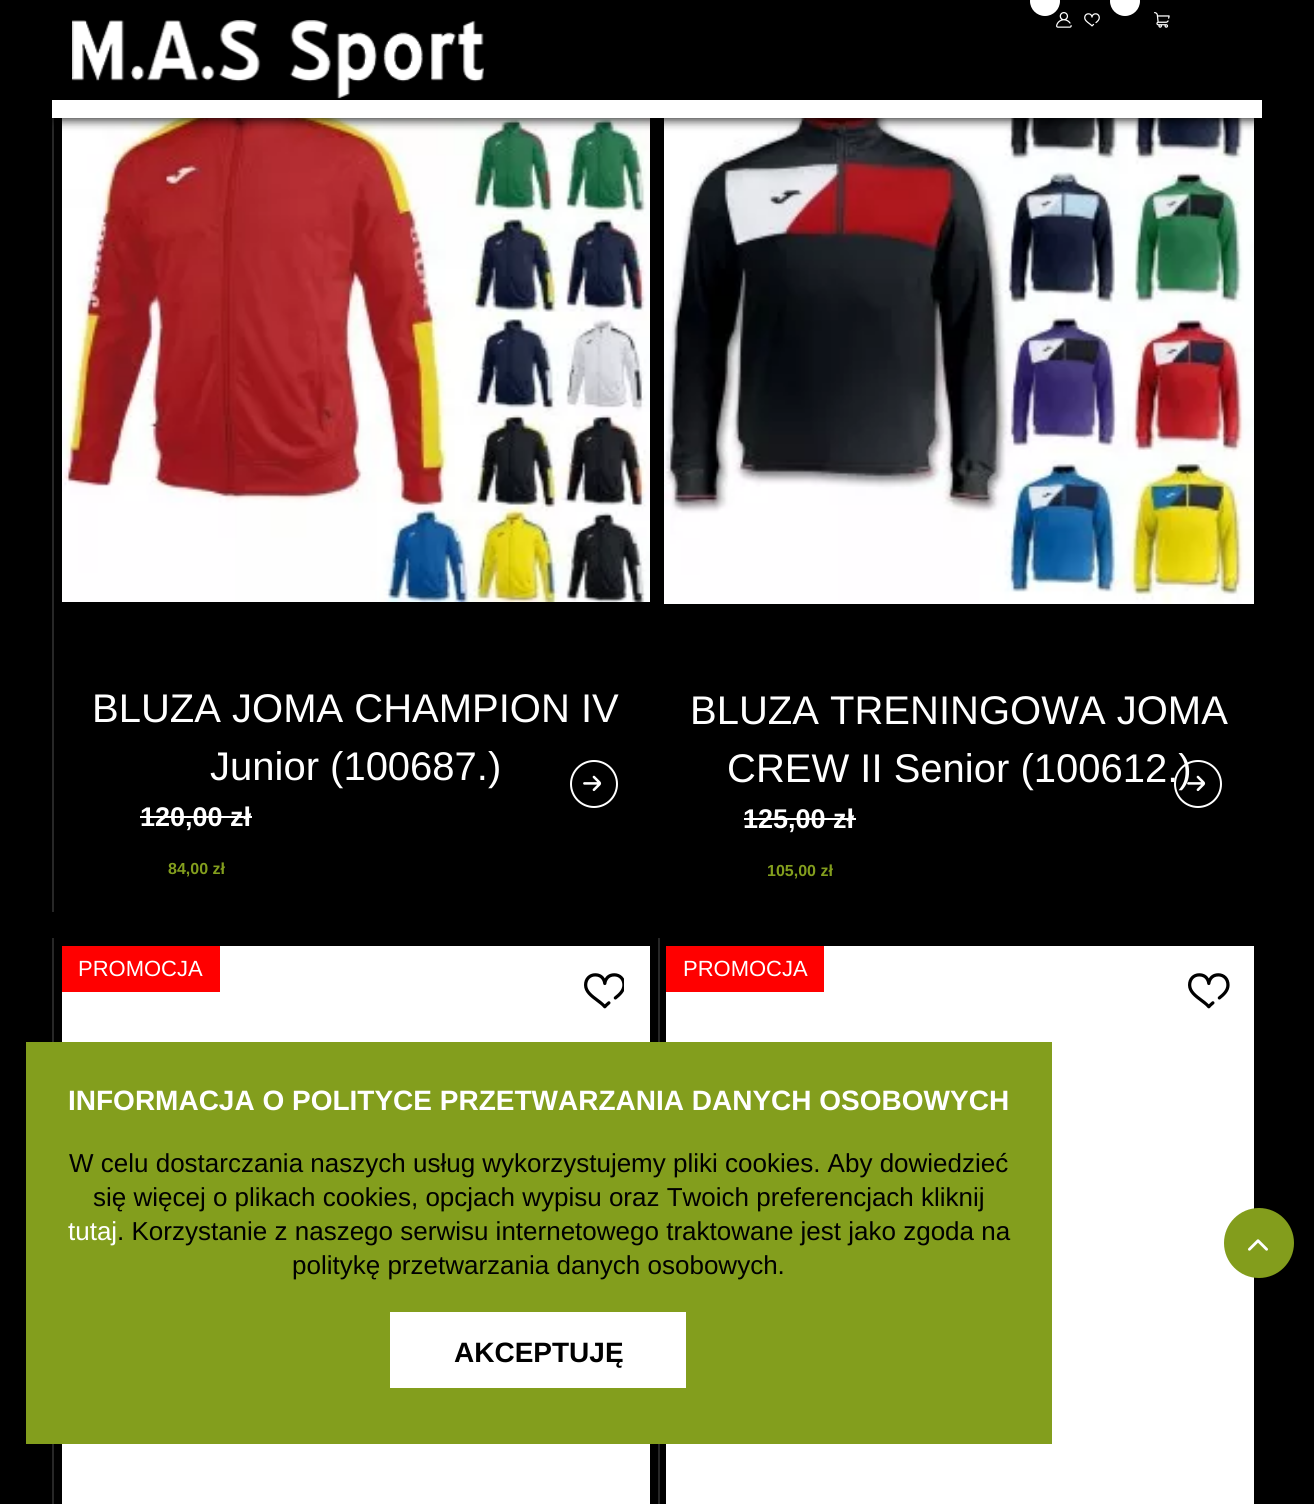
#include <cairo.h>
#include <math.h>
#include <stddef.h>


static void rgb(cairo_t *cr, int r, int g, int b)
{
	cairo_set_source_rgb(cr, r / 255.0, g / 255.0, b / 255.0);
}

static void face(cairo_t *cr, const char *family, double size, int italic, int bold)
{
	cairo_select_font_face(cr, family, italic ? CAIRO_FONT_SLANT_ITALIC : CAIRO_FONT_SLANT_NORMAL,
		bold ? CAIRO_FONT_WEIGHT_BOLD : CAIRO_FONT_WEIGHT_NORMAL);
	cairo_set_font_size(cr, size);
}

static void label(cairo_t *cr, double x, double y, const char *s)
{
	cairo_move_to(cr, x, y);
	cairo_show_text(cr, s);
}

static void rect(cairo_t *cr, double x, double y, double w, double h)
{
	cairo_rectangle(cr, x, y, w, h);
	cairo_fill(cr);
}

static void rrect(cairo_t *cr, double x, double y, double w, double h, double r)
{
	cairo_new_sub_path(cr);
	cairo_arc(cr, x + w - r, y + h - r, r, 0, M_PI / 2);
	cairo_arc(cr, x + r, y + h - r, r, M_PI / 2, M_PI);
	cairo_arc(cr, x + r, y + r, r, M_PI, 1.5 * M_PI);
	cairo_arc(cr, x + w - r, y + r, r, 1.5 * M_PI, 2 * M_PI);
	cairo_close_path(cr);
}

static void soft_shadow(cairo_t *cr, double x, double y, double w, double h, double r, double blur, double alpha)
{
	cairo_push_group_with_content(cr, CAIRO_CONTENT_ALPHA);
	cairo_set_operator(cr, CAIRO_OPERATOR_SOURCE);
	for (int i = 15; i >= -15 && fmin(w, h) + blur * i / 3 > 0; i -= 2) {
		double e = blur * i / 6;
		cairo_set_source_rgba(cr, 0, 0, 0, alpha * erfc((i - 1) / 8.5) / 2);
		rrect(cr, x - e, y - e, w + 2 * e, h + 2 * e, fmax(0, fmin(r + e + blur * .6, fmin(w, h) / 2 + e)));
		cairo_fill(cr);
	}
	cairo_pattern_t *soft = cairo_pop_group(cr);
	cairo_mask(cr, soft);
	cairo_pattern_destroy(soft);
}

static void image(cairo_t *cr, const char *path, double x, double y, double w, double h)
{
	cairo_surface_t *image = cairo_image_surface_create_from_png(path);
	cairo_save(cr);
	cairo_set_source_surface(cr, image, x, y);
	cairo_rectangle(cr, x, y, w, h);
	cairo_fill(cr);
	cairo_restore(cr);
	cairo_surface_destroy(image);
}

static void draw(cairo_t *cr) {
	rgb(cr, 0, 0, 0);
	cairo_paint(cr);
	rgb(cr, 39, 39, 39);
	rect(cr, 52, 118, 2, 794);
	image(cr, "image4.png", 62, 118, 588, 484);
	image(cr, "image6.png", 664, 118, 590, 486);
	rgb(cr, 0, 0, 0);
	soft_shadow(cr, 0, 6, 1314, 118, 0, 4, 0.1);
	image(cr, "image0.png", 1084, 13, 16, 14);
	image(cr, "image2.png", 1056, 12, 16, 16);
	rgb(cr, 255, 255, 255);
	cairo_arc(cr, 1045, 1, 15, 0, 2 * M_PI);
	cairo_fill(cr);
	image(cr, "image1.png", 1154, 12, 16, 16);
	cairo_arc(cr, 1125, 1, 15, 0, 2 * M_PI);
	cairo_fill(cr);
	rgb(cr, 0, 0, 0);
	soft_shadow(cr, 54, 102, 1210, 18, 0, 5, 0.75);
	image(cr, "image3.png", 72, 20, 412, 79);
	rgb(cr, 255, 255, 255);
	rect(cr, 52, 100, 1210, 18);
	face(cr, "Liberation Sans", 40, 0, 0);
	label(cr, 92, 722, "BLUZA JOMA CHAMPION IV");
	label(cr, 210, 780, "Junior (100687.)");
	image(cr, "image5.png", 583, 775, 19, 17);
	cairo_arc(cr, 594, 784, 23, 0, 2 * M_PI);
	cairo_stroke(cr);
	face(cr, "Liberation Sans", 27, 0, 1);
	label(cr, 140, 826, "120,00 zł");
	rect(cr, 140, 816, 112, 2);
	face(cr, "Liberation Sans", 16, 0, 1);
	rgb(cr, 131, 158, 29);
	label(cr, 168, 874, "84,00 zł");
	face(cr, "Liberation Sans", 40, 0, 0);
	rgb(cr, 255, 255, 255);
	label(cr, 690, 724, "BLUZA TRENINGOWA JOMA");
	label(cr, 727, 782, "CREW II Senior (100612.)");
	image(cr, "image7.png", 1187, 775, 19, 17);
	cairo_arc(cr, 1198, 784, 23, 0, 2 * M_PI);
	cairo_stroke(cr);
	face(cr, "Liberation Sans", 27, 0, 1);
	label(cr, 743, 828, "125,00 zł");
	rect(cr, 744, 818, 112, 2);
	face(cr, "Liberation Sans", 16, 0, 1);
	rgb(cr, 131, 158, 29);
	label(cr, 767, 876, "105,00 zł");
	rgb(cr, 39, 39, 39);
	rect(cr, 52, 938, 2, 566);
	rgb(cr, 255, 255, 255);
	rect(cr, 62, 946, 588, 558);
	image(cr, "image8.png", 584, 973, 40, 36);
	rgb(cr, 255, 0, 0);
	rect(cr, 62, 946, 158, 46);
	face(cr, "Liberation Sans", 22, 0, 0);
	rgb(cr, 255, 255, 255);
	label(cr, 78, 976, "PROMOCJA");
	rgb(cr, 39, 39, 39);
	rect(cr, 658, 938, 2, 566);
	rgb(cr, 255, 255, 255);
	rect(cr, 666, 946, 588, 558);
	image(cr, "image9.png", 1188, 973, 42, 36);
	rgb(cr, 255, 0, 0);
	rect(cr, 666, 946, 158, 46);
	rgb(cr, 255, 255, 255);
	label(cr, 683, 976, "PROMOCJA");
	rgb(cr, 131, 158, 29);
	rect(cr, 26, 1042, 1026, 402);
	face(cr, "Liberation Sans", 28, 0, 1);
	rgb(cr, 255, 255, 255);
	label(cr, 68, 1110, "INFORMACJA O POLITYCE PRZETWARZANIA DANYCH OSOBOWYCH");
	face(cr, "Liberation Sans", 26, 0, 0);
	rgb(cr, 0, 0, 0);
	label(cr, 69, 1172, "W celu dostarczania naszych usług wykorzystujemy pliki cookies. Aby dowiedzieć");
	label(cr, 93, 1206, "się więcej o plikach cookies, opcjach wypisu oraz Twoich preferencjach kliknij");
	rgb(cr, 255, 255, 255);
	label(cr, 68, 1240, "tutaj");
	rgb(cr, 0, 0, 0);
	label(cr, 117, 1240, ". Korzystanie z naszego serwisu internetowego traktowane jest jako zgoda na");
	label(cr, 292, 1274, "politykę przetwarzania danych osobowych.");
	rgb(cr, 255, 255, 255);
	rect(cr, 390, 1312, 296, 76);
	face(cr, "Liberation Sans", 28, 0, 1);
	rgb(cr, 0, 0, 0);
	label(cr, 454, 1362, "AKCEPTUJĘ");
	rgb(cr, 131, 157, 28);
	cairo_new_path(cr);
	cairo_arc(cr, 1259, 1243, 35, 0, 2 * M_PI);
	cairo_fill(cr);
	image(cr, "image10.png", 1248, 1239, 20, 12);
}

int main(void) {
	cairo_surface_t *surface = cairo_image_surface_create(CAIRO_FORMAT_RGB24, 1314, 1504);
	cairo_t *cr = cairo_create(surface);
	cairo_font_options_t *options = cairo_font_options_create();
	cairo_font_options_set_hint_metrics(options, CAIRO_HINT_METRICS_OFF);
	cairo_font_options_set_hint_style(options, CAIRO_HINT_STYLE_NONE);
	cairo_set_font_options(cr, options);
	cairo_set_miter_limit(cr, 4);
	draw(cr);
	cairo_surface_write_to_png(surface, "render.png");
	cairo_font_options_destroy(options);
	cairo_destroy(cr);
	cairo_surface_destroy(surface);
	return 0;
}
